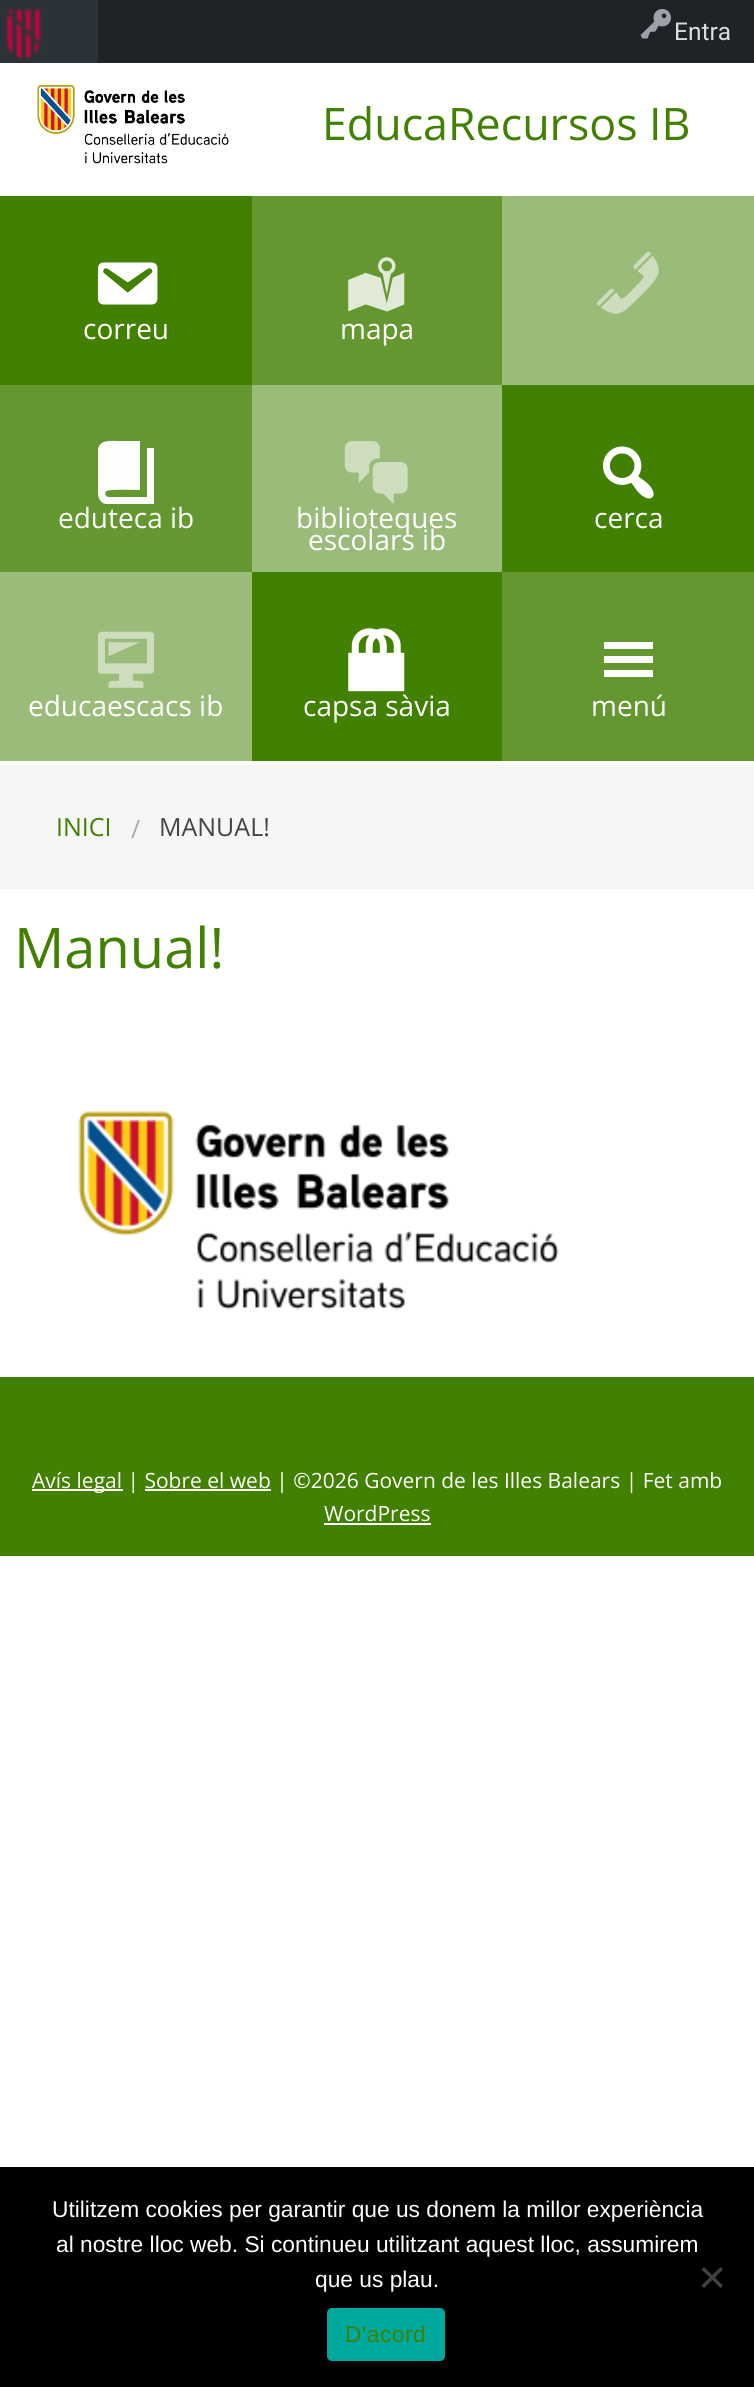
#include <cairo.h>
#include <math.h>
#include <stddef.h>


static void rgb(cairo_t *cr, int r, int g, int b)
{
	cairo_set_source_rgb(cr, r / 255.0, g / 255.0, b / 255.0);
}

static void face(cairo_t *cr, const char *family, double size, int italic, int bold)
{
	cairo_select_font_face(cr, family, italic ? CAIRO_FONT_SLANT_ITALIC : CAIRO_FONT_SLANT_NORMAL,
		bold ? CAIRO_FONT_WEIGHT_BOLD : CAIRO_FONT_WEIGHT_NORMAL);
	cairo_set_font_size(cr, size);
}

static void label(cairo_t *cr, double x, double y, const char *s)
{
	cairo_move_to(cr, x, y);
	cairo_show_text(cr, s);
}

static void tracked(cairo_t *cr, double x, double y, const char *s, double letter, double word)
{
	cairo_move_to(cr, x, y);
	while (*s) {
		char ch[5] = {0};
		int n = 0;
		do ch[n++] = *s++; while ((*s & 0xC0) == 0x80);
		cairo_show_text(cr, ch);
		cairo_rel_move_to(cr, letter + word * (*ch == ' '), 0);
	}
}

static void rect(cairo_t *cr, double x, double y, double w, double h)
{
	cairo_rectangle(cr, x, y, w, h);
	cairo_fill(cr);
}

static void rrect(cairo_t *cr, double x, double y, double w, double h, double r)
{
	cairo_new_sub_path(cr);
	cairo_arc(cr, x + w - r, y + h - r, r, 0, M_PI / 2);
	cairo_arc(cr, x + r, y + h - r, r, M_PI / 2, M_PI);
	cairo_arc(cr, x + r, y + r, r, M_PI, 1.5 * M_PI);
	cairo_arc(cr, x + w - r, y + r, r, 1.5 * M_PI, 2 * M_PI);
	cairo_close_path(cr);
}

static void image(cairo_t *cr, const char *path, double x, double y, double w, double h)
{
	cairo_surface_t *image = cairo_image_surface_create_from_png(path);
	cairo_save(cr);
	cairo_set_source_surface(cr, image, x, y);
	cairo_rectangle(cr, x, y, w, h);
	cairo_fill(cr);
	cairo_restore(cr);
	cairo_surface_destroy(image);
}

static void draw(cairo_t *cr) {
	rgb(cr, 255, 255, 255);
	cairo_paint(cr);
	rgb(cr, 29, 35, 39);
	rect(cr, 98, 0, 656, 63);
	rgb(cr, 44, 51, 56);
	rect(cr, 0, 0, 98, 63);
	image(cr, "image0.png", 5, 8, 36, 52);
	image(cr, "image1.png", 640, 9, 31, 30);
	face(cr, "Roboto", 24.5, 0, 0);
	rgb(cr, 221, 221, 221);
	label(cr, 674, 40, "Entra");
	image(cr, "image2.png", 37, 84, 192, 80);
	face(cr, "Open Sans", 44.75, 0, 0);
	rgb(cr, 65, 128, 0);
	label(cr, 322, 140, "EducaRecursos IB");
	rect(cr, 0, 196, 252, 189);
	image(cr, "image3.png", 97, 262, 61, 43);
	face(cr, "Open Sans", 28, 0, 0);
	rgb(cr, 255, 255, 255);
	label(cr, 83, 339, "correu");
	rgb(cr, 101, 151, 49);
	rect(cr, 252, 196, 250, 189);
	image(cr, "image4.png", 348, 257, 57, 55);
	rgb(cr, 255, 255, 255);
	label(cr, 340, 339, "mapa");
	rgb(cr, 155, 187, 123);
	rect(cr, 502, 196, 252, 189);
	image(cr, "image5.png", 596, 251, 63, 63);
	rgb(cr, 101, 151, 49);
	rect(cr, 0, 385, 252, 187);
	rgb(cr, 253, 253, 253);
	cairo_new_path(cr);
	cairo_move_to(cr, 147, 448);
	cairo_line_to(cr, 154, 448);
	cairo_line_to(cr, 154, 504);
	cairo_line_to(cr, 105, 504);
	cairo_curve_to(cr, 97, 501, 98, 493, 98, 487);
	cairo_line_to(cr, 98, 449);
	cairo_curve_to(cr, 100, 439, 112, 441, 119, 441);
	cairo_line_to(cr, 140, 441);
	cairo_line_to(cr, 140, 490);
	cairo_curve_to(cr, 135, 490, 109, 489, 107, 491);
	cairo_curve_to(cr, 104, 492, 105, 496, 108, 497);
	cairo_line_to(cr, 147, 497);
	cairo_close_path(cr);
	cairo_fill(cr);
	rgb(cr, 255, 255, 255);
	label(cr, 58, 528, "eduteca ib");
	rgb(cr, 155, 187, 123);
	rect(cr, 252, 385, 250, 187);
	image(cr, "image6.png", 344, 441, 64, 63);
	rgb(cr, 255, 255, 255);
	label(cr, 296, 528, "biblioteques");
	label(cr, 308, 550, "escolars ib");
	rgb(cr, 65, 128, 0);
	rect(cr, 502, 385, 252, 187);
	image(cr, "image7.png", 602, 446, 52, 53);
	rgb(cr, 255, 255, 255);
	label(cr, 594, 528, "cerca");
	rgb(cr, 155, 187, 123);
	rect(cr, 0, 572, 252, 189);
	image(cr, "image8.png", 98, 631, 56, 57);
	rgb(cr, 255, 255, 255);
	label(cr, 28, 716, "educaescacs ib");
	rgb(cr, 65, 128, 0);
	rect(cr, 252, 572, 250, 189);
	image(cr, "image9.png", 348, 628, 57, 64);
	rgb(cr, 255, 255, 255);
	label(cr, 303, 716, "capsa sàvia");
	rgb(cr, 101, 151, 49);
	rect(cr, 502, 572, 252, 189);
	rgb(cr, 253, 253, 253);
	cairo_new_path(cr);
	cairo_move_to(cr, 604, 677);
	cairo_line_to(cr, 653, 677);
	cairo_line_to(cr, 653, 670);
	cairo_line_to(cr, 604, 670);
	cairo_close_path(cr);
	cairo_move_to(cr, 604, 642);
	cairo_line_to(cr, 604, 649);
	cairo_line_to(cr, 653, 649);
	cairo_line_to(cr, 653, 642);
	cairo_close_path(cr);
	cairo_move_to(cr, 604, 663);
	cairo_line_to(cr, 653, 663);
	cairo_line_to(cr, 653, 656);
	cairo_line_to(cr, 604, 656);
	cairo_close_path(cr);
	cairo_fill(cr);
	rgb(cr, 255, 255, 255);
	label(cr, 591, 716, "menú");
	rgb(cr, 246, 246, 246);
	rect(cr, 0, 765, 754, 124);
	face(cr, "Open Sans", 25, 0, 0);
	rgb(cr, 65, 128, 0);
	label(cr, 56, 836, "INICI");
	rgb(cr, 170, 170, 170);
	label(cr, 131, 838, "/");
	rgb(cr, 68, 68, 68);
	label(cr, 159, 836, "MANUAL!");
	face(cr, "Open Sans", 56, 0, 0);
	rgb(cr, 65, 128, 0);
	label(cr, 14, 968, "Manual!");
	image(cr, "image10.png", 78, 1110, 481, 200);
	rect(cr, 0, 1377, 754, 179);
	rgb(cr, 255, 255, 255);
	rect(cr, 32, 1489, 91, 2);
	face(cr, "Open Sans", 21, 0, 0);
	label(cr, 32, 1488, "Avís legal | Sobre el web | ©2026 Govern de les Illes Balears | Fet amb");
	rect(cr, 145, 1489, 126, 2);
	label(cr, 324, 1521, "WordPress");
	rect(cr, 324, 1523, 107, 2);
	rgb(cr, 0, 0, 0);
	rect(cr, 0, 2167, 754, 220);
	face(cr, "Liberation Sans", 22.75, 0, 0);
	rgb(cr, 255, 255, 255);
	label(cr, 52, 2217, "Utilitzem cookies per garantir que us donem la millor experiència");
	label(cr, 56, 2252, "al nostre lloc web. Si continueu utilitzant aquest lloc, assumirem");
	label(cr, 315, 2287, "que us plau.");
	rgb(cr, 64, 64, 64);
	cairo_new_path(cr);
	cairo_move_to(cr, 720.5, 2267);
	cairo_line_to(cr, 723, 2269.5);
	cairo_line_to(cr, 704, 2288);
	cairo_line_to(cr, 701.5, 2285.5);
	cairo_close_path(cr);
	cairo_fill(cr);
	cairo_new_path(cr);
	cairo_move_to(cr, 701.5, 2269.5);
	cairo_line_to(cr, 704, 2267);
	cairo_line_to(cr, 723, 2285.5);
	cairo_line_to(cr, 720.5, 2288);
	cairo_close_path(cr);
	cairo_fill(cr);
	rgb(cr, 0, 169, 157);
	rrect(cr, 327, 2308, 118, 53, 5);
	cairo_fill(cr);
	rgb(cr, 65, 128, 0);
	tracked(cr, 345, 2342, "D'acord", 0.5, 0);
}

int main(void) {
	cairo_surface_t *surface = cairo_image_surface_create(CAIRO_FORMAT_RGB24, 754, 2387);
	cairo_t *cr = cairo_create(surface);
	cairo_font_options_t *options = cairo_font_options_create();
	cairo_font_options_set_hint_metrics(options, CAIRO_HINT_METRICS_OFF);
	cairo_font_options_set_hint_style(options, CAIRO_HINT_STYLE_NONE);
	cairo_set_font_options(cr, options);
	cairo_set_miter_limit(cr, 4);
	draw(cr);
	cairo_surface_write_to_png(surface, "render.png");
	cairo_font_options_destroy(options);
	cairo_destroy(cr);
	cairo_surface_destroy(surface);
	return 0;
}
